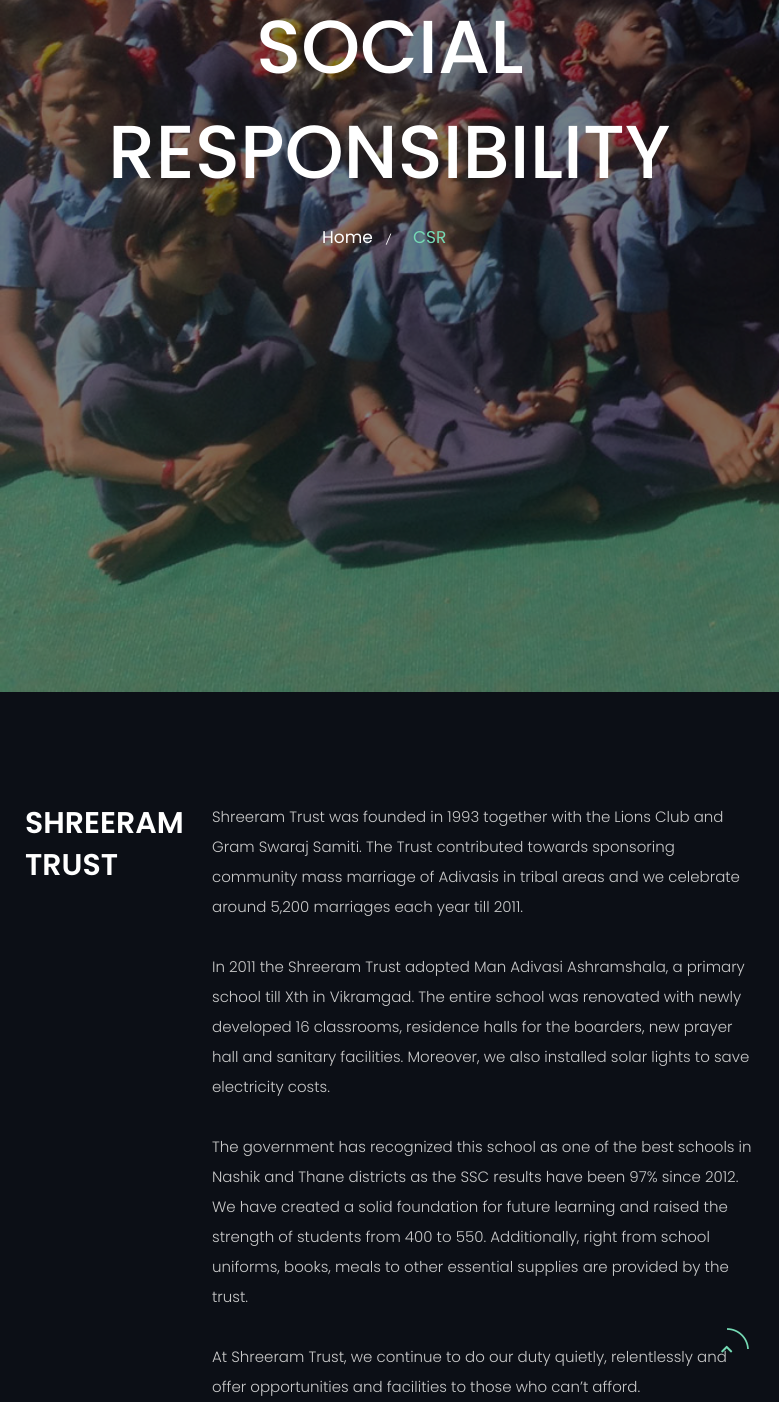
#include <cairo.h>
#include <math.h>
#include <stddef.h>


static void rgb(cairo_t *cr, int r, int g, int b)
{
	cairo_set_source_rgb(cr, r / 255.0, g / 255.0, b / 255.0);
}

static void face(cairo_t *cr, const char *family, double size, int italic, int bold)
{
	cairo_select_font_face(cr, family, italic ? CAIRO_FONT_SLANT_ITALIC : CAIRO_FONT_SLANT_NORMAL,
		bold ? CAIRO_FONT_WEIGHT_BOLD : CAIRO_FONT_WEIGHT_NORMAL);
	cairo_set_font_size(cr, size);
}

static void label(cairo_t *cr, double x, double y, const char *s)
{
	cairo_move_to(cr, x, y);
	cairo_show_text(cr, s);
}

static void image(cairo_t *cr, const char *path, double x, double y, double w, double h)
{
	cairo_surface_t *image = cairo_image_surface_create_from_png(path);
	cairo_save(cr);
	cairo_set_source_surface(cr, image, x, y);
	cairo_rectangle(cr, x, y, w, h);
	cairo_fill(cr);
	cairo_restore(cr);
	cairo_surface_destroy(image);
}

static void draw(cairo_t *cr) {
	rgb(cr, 12, 15, 22);
	cairo_paint(cr);
	image(cr, "image0.png", 0, 0, 779, 692);
	face(cr, "Poppins Medium", 75, 0, 0);
	rgb(cr, 255, 255, 255);
	label(cr, 256, 73, "SOCIAL");
	label(cr, 108, 178, "RESPONSIBILITY");
	face(cr, "Poppins", 17, 0, 0);
	label(cr, 322, 243, "Home");
	face(cr, "Poppins", 10, 1, 0);
	label(cr, 386, 243, "/");
	face(cr, "Poppins", 17, 0, 0);
	rgb(cr, 117, 218, 180);
	label(cr, 413, 243, "CSR");
	face(cr, "Poppins SemiBold", 30, 0, 0);
	rgb(cr, 255, 255, 255);
	label(cr, 25, 833, "SHREERAM");
	label(cr, 25, 875, "TRUST");
	face(cr, "Poppins Light", 15, 0, 0);
	rgb(cr, 200, 200, 200);
	label(cr, 212, 822, "Shreeram Trust was founded in 1993 together with the Lions Club and");
	label(cr, 212, 852, "Gram Swaraj Samiti. The Trust contributed towards sponsoring");
	label(cr, 212, 882, "community mass marriage of Adivasis in tribal areas and we celebrate");
	label(cr, 212, 912, "around 5,200 marriages each year till 2011.");
	label(cr, 212, 972, "In 2011 the Shreeram Trust adopted Man Adivasi Ashramshala, a primary");
	label(cr, 212, 1002, "school till Xth in Vikramgad. The entire school was renovated with newly");
	label(cr, 212, 1032, "developed 16 classrooms, residence halls for the boarders, new prayer");
	label(cr, 212, 1062, "hall and sanitary facilities. Moreover, we also installed solar lights to save");
	label(cr, 212, 1092, "electricity costs.");
	label(cr, 212, 1152, "The government has recognized this school as one of the best schools in");
	label(cr, 212, 1182, "Nashik and Thane districts as the SSC results have been 97% since 2012.");
	label(cr, 212, 1212, "We have created a solid foundation for future learning and raised the");
	label(cr, 212, 1242, "strength of students from 400 to 550. Additionally, right from school");
	label(cr, 212, 1272, "uniforms, books, meals to other essential supplies are provided by the");
	label(cr, 212, 1302, "trust.");
	label(cr, 212, 1362, "At Shreeram Trust, we continue to do our duty quietly, relentlessly and");
	label(cr, 212, 1392, "offer opportunities and facilities to those who can’t afford.");
	cairo_new_path(cr);
	cairo_move_to(cr, 727, 1329);
	cairo_curve_to(cr, 738.5, 1329, 747.5, 1338, 748, 1349);
	rgb(cr, 117, 218, 180);
	cairo_set_line_width(cr, 1.7);
	cairo_stroke(cr);
	image(cr, "image1.png", 721, 1345, 12, 8);
}

int main(void) {
	cairo_surface_t *surface = cairo_image_surface_create(CAIRO_FORMAT_RGB24, 779, 1402);
	cairo_t *cr = cairo_create(surface);
	cairo_font_options_t *options = cairo_font_options_create();
	cairo_font_options_set_hint_metrics(options, CAIRO_HINT_METRICS_OFF);
	cairo_font_options_set_hint_style(options, CAIRO_HINT_STYLE_NONE);
	cairo_set_font_options(cr, options);
	cairo_set_miter_limit(cr, 4);
	draw(cr);
	cairo_surface_write_to_png(surface, "render.png");
	cairo_font_options_destroy(options);
	cairo_destroy(cr);
	cairo_surface_destroy(surface);
	return 0;
}
